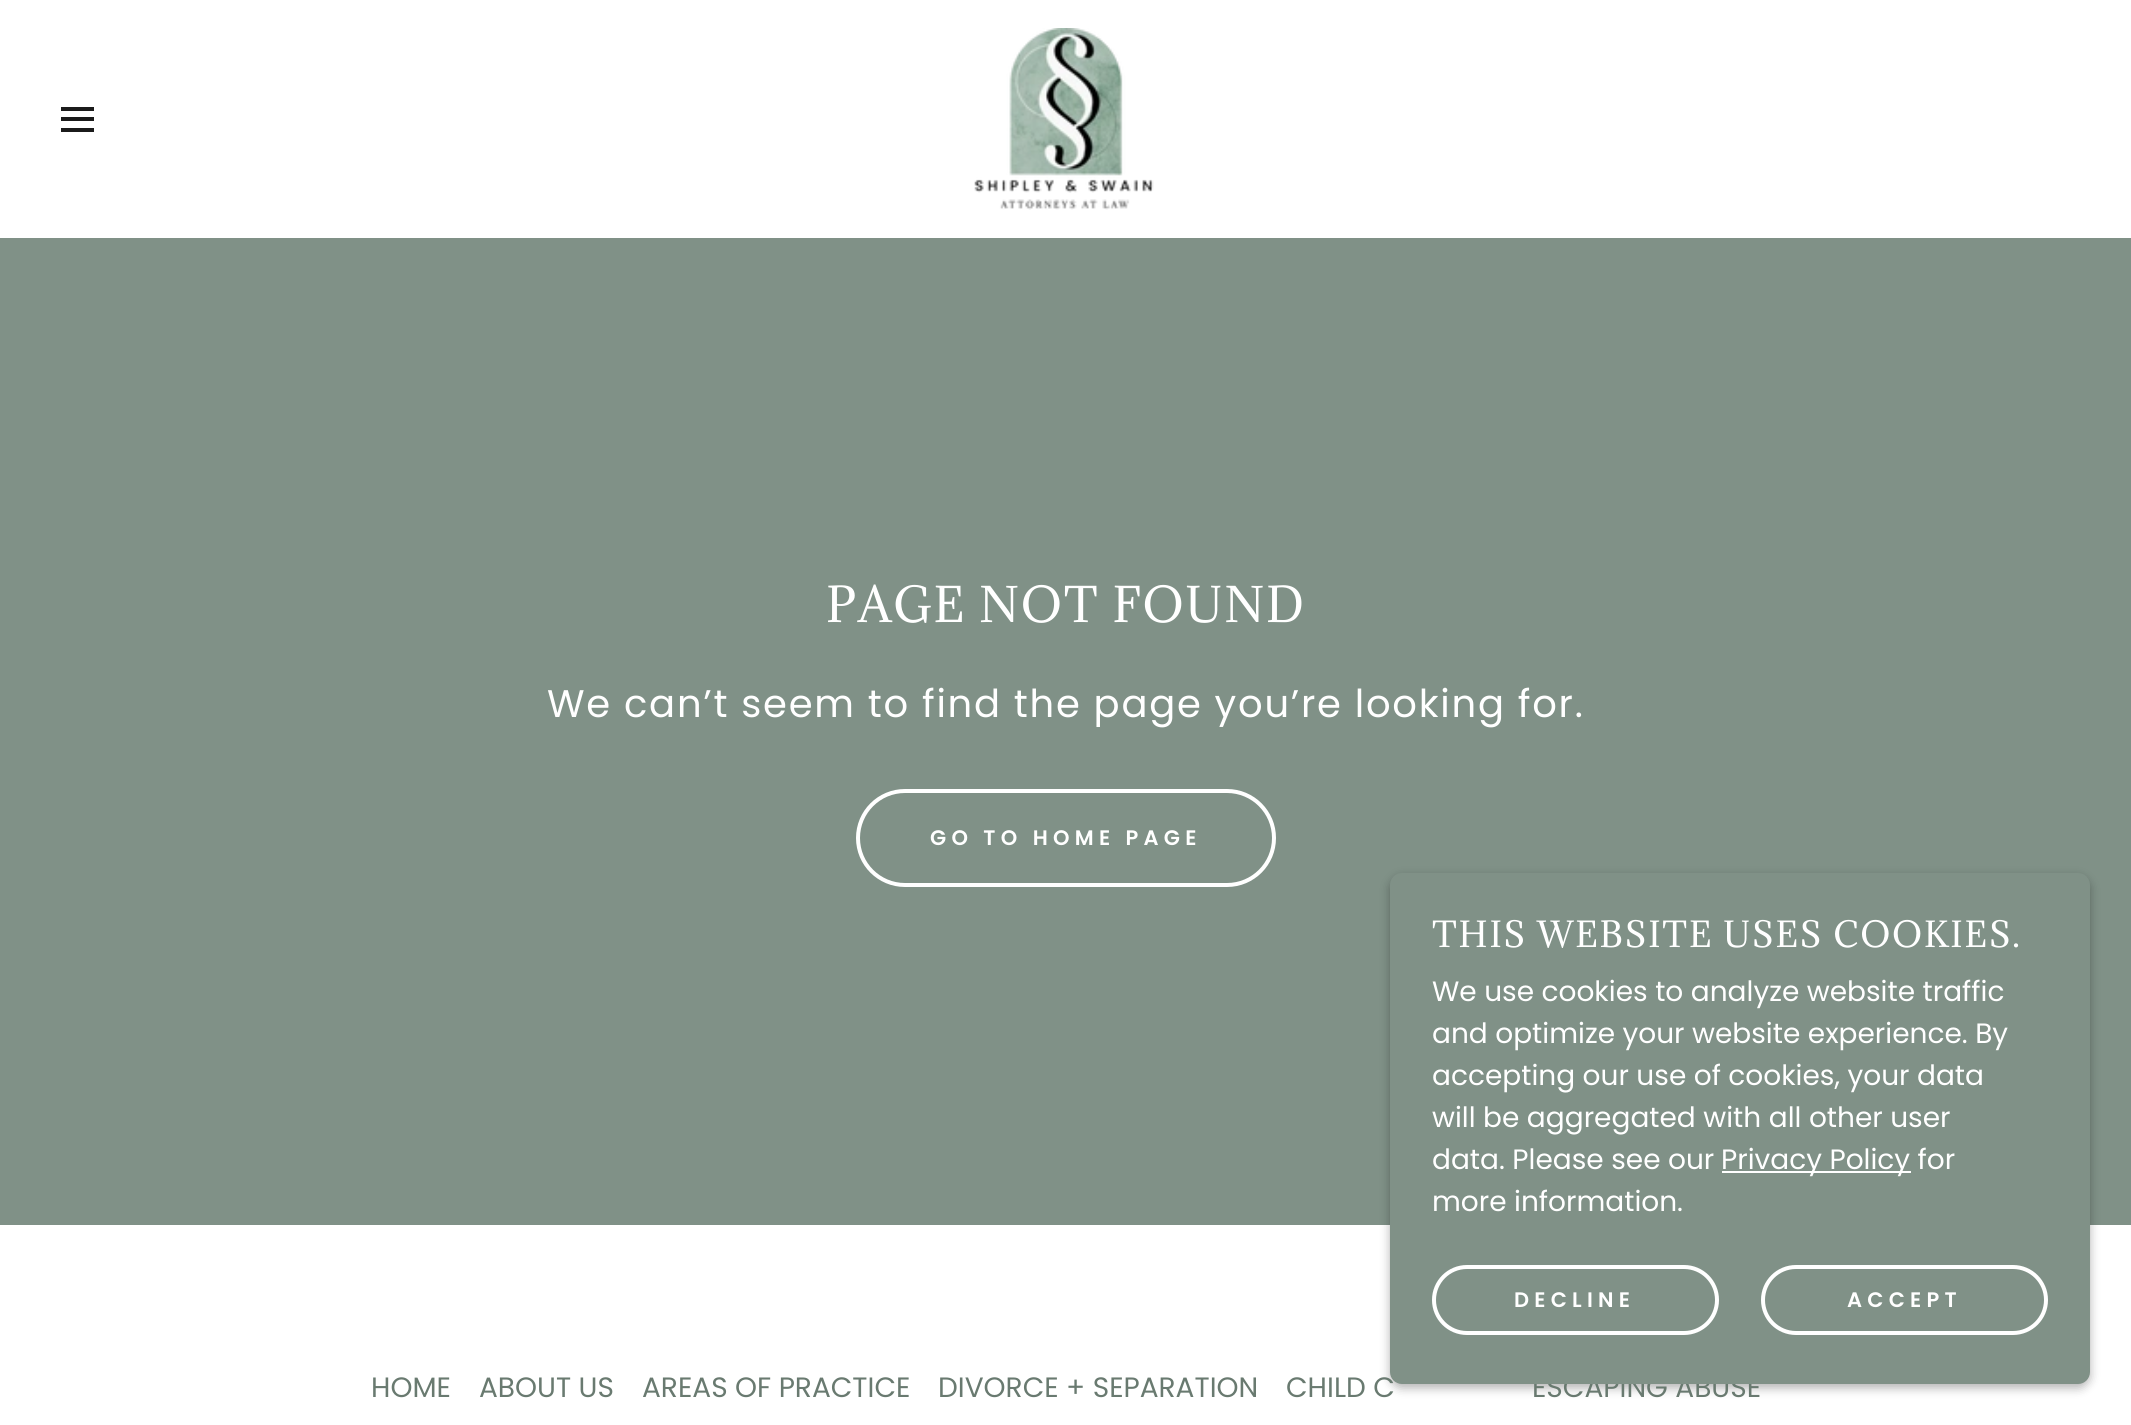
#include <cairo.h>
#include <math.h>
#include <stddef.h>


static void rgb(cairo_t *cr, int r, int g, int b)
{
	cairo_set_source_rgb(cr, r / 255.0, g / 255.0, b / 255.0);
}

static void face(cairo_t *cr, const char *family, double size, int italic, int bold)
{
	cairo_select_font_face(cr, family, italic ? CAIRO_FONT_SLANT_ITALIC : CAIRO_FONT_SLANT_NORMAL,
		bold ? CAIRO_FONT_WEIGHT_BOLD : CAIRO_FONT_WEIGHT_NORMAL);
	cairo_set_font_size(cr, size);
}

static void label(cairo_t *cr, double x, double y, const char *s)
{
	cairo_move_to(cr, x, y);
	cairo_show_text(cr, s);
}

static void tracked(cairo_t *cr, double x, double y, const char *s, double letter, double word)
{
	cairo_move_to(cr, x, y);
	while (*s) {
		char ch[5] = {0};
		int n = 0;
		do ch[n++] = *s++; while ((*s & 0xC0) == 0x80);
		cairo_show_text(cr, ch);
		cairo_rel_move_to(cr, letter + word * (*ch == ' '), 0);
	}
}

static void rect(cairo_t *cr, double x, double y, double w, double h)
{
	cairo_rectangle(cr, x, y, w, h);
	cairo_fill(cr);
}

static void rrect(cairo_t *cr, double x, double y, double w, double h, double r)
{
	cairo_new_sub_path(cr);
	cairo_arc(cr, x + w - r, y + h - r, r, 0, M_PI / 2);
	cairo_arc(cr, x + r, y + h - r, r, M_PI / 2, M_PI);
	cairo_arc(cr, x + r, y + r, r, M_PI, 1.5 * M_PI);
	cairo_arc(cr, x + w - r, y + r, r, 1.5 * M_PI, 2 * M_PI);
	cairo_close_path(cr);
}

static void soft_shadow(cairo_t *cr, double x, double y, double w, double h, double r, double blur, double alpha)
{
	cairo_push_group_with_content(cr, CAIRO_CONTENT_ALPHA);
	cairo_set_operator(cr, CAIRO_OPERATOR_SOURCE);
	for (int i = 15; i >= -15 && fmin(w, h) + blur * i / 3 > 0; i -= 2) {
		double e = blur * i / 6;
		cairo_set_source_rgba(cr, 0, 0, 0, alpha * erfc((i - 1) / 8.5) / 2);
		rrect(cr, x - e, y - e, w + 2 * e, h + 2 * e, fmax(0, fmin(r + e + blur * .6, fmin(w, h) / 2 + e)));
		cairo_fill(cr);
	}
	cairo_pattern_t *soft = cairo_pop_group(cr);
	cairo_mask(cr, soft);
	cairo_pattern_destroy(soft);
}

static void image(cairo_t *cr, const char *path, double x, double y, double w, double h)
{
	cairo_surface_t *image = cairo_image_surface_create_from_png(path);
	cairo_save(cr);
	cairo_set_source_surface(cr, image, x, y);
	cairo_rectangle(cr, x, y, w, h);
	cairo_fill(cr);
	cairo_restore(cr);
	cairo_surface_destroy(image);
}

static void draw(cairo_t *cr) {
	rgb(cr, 255, 255, 255);
	cairo_paint(cr);
	rgb(cr, 27, 27, 27);
	rect(cr, 61, 107, 33, 4);
	rect(cr, 61, 117, 33, 4);
	rect(cr, 61, 128, 33, 4);
	image(cr, "image0.png", 974, 28, 180, 182);
	rgb(cr, 128, 145, 135);
	rect(cr, 0, 238, 2131, 987);
	face(cr, "Adamina", 45.5, 0, 0);
	rgb(cr, 255, 255, 255);
	tracked(cr, 826, 622, "PAGE NOT FOUND", 1.75, 0);
	face(cr, "Poppins", 38.5, 0, 0);
	tracked(cr, 547, 717, "We can’t seem to find the page you’re looking for.", 1.75, 0);
	rrect(cr, 858, 791, 416, 94, 47);
	cairo_set_line_width(cr, 4);
	cairo_stroke(cr);
	face(cr, "Poppins SemiBold", 21, 0, 0);
	tracked(cr, 930, 845, "GO TO HOME PAGE", 5.25, 0);
	rgb(cr, 0, 0, 0);
	soft_shadow(cr, 1390, 877, 700, 511, 12, 5, 0.3);
	face(cr, "Poppins", 28, 0, 0);
	rgb(cr, 105, 122, 112);
	label(cr, 1286, 1397, "CHILD C");
	label(cr, 1532, 1397, "ESCAPING ABUSE");
	rgb(cr, 128, 145, 135);
	rrect(cr, 1390, 873, 700, 511, 12);
	cairo_fill(cr);
	face(cr, "Adamina", 33.25, 0, 0);
	rgb(cr, 255, 255, 255);
	tracked(cr, 1432, 947, "THIS WEBSITE USES COOKIES.", 1.75, 0);
	face(cr, "Poppins", 28, 0, 0);
	label(cr, 1432, 1001, "We use cookies to analyze website traffic");
	label(cr, 1432, 1043, "and optimize your website experience. By");
	label(cr, 1432, 1085, "accepting our use of cookies, your data");
	label(cr, 1432, 1127, "will be aggregated with all other user");
	label(cr, 1432, 1169, "data. Please see our");
	rect(cr, 1722, 1171, 189, 2);
	label(cr, 1721, 1169, "Privacy Policy for");
	label(cr, 1432, 1211, "more information.");
	rrect(cr, 1434, 1267, 283, 66, 33);
	cairo_stroke(cr);
	face(cr, "Poppins SemiBold", 21, 0, 0);
	tracked(cr, 1514, 1307, "DECLINE", 5.25, 0);
	rrect(cr, 1763, 1267, 283, 66, 33);
	cairo_stroke(cr);
	tracked(cr, 1847, 1307, "ACCEPT", 5.25, 0);
	face(cr, "Poppins", 28, 0, 0);
	rgb(cr, 105, 122, 112);
	label(cr, 371, 1397, "HOME");
	label(cr, 479, 1397, "ABOUT US");
	label(cr, 642, 1397, "AREAS OF PRACTICE");
	label(cr, 938, 1397, "DIVORCE + SEPARATION");
}

int main(void) {
	cairo_surface_t *surface = cairo_image_surface_create(CAIRO_FORMAT_RGB24, 2131, 1425);
	cairo_t *cr = cairo_create(surface);
	cairo_font_options_t *options = cairo_font_options_create();
	cairo_font_options_set_hint_metrics(options, CAIRO_HINT_METRICS_OFF);
	cairo_font_options_set_hint_style(options, CAIRO_HINT_STYLE_NONE);
	cairo_set_font_options(cr, options);
	cairo_set_miter_limit(cr, 4);
	draw(cr);
	cairo_surface_write_to_png(surface, "render.png");
	cairo_font_options_destroy(options);
	cairo_destroy(cr);
	cairo_surface_destroy(surface);
	return 0;
}
